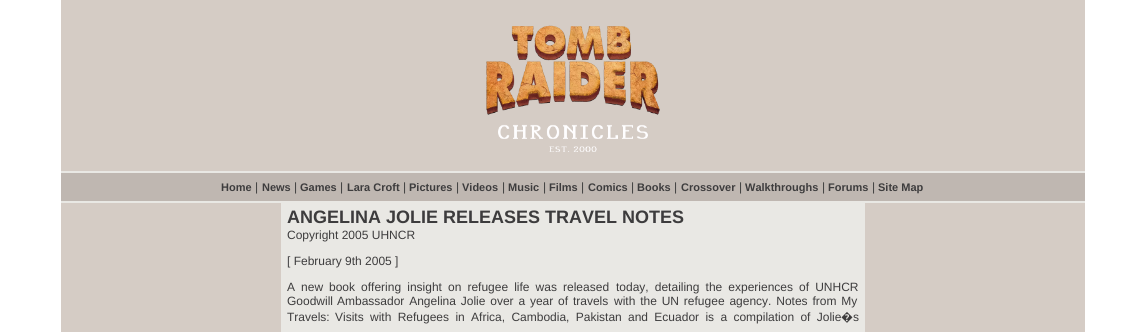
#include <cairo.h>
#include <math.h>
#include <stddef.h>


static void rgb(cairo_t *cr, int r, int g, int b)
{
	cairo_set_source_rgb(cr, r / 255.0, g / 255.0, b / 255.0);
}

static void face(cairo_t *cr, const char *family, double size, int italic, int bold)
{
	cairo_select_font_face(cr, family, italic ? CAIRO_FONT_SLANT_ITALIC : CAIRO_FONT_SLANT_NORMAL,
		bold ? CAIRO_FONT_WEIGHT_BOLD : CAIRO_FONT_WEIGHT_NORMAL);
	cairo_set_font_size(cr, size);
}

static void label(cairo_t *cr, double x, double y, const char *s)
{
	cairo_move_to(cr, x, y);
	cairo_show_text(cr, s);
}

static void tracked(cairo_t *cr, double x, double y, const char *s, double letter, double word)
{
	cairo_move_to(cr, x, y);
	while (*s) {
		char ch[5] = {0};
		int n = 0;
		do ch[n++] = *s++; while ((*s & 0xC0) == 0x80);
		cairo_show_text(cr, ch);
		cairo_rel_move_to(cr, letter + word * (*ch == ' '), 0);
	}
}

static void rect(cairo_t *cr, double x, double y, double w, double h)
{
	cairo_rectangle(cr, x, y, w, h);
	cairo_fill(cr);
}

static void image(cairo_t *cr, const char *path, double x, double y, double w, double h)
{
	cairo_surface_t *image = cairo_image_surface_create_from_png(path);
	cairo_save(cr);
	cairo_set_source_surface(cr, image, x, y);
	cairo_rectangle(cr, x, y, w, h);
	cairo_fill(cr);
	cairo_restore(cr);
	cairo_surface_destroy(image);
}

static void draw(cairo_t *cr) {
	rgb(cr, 255, 255, 255);
	cairo_paint(cr);
	rgb(cr, 213, 204, 197);
	rect(cr, 61, 0, 1024, 171);
	image(cr, "image0.png", 486, 25, 174, 127);
	rgb(cr, 233, 232, 228);
	rect(cr, 61, 171, 1024, 2);
	rgb(cr, 191, 183, 177);
	rect(cr, 61, 173, 1024, 28);
	face(cr, "Liberation Sans", 11, 0, 1);
	rgb(cr, 61, 60, 61);
	label(cr, 221, 191, "Home");
	face(cr, "Liberation Sans", 12, 0, 0);
	label(cr, 255, 191, "|");
	face(cr, "Liberation Sans", 11, 0, 1);
	label(cr, 262, 191, "News");
	face(cr, "Liberation Sans", 12, 0, 0);
	label(cr, 294, 191, "|");
	face(cr, "Liberation Sans", 11, 0, 1);
	label(cr, 300, 191, "Games");
	face(cr, "Liberation Sans", 12, 0, 0);
	label(cr, 340, 191, "|");
	face(cr, "Liberation Sans", 11, 0, 1);
	label(cr, 347, 191, "Lara Croft");
	face(cr, "Liberation Sans", 12, 0, 0);
	label(cr, 403, 191, "|");
	face(cr, "Liberation Sans", 11, 0, 1);
	label(cr, 409, 191, "Pictures");
	face(cr, "Liberation Sans", 12, 0, 0);
	label(cr, 456, 191, "|");
	face(cr, "Liberation Sans", 11, 0, 1);
	label(cr, 462, 191, "Videos");
	face(cr, "Liberation Sans", 12, 0, 0);
	label(cr, 502, 191, "|");
	face(cr, "Liberation Sans", 11, 0, 1);
	label(cr, 508, 191, "Music");
	face(cr, "Liberation Sans", 12, 0, 0);
	label(cr, 543, 191, "|");
	face(cr, "Liberation Sans", 11, 0, 1);
	label(cr, 549, 191, "Films");
	face(cr, "Liberation Sans", 12, 0, 0);
	label(cr, 581, 191, "|");
	face(cr, "Liberation Sans", 11, 0, 1);
	label(cr, 588, 191, "Comics");
	face(cr, "Liberation Sans", 12, 0, 0);
	label(cr, 631, 191, "|");
	face(cr, "Liberation Sans", 11, 0, 1);
	label(cr, 637, 191, "Books");
	face(cr, "Liberation Sans", 12, 0, 0);
	label(cr, 674, 191, "|");
	face(cr, "Liberation Sans", 11, 0, 1);
	label(cr, 681, 191, "Crossover");
	face(cr, "Liberation Sans", 12, 0, 0);
	label(cr, 739, 191, "|");
	face(cr, "Liberation Sans", 11, 0, 1);
	label(cr, 745, 191, "Walkthroughs");
	face(cr, "Liberation Sans", 12, 0, 0);
	label(cr, 822, 191, "|");
	face(cr, "Liberation Sans", 11, 0, 1);
	label(cr, 828, 191, "Forums");
	face(cr, "Liberation Sans", 12, 0, 0);
	label(cr, 872, 191, "|");
	face(cr, "Liberation Sans", 11, 0, 1);
	label(cr, 878, 191, "Site Map");
	rgb(cr, 233, 232, 228);
	rect(cr, 61, 201, 1024, 2);
	rect(cr, 281, 203, 584, 129);
	rgb(cr, 213, 204, 197);
	rect(cr, 61, 203, 220, 129);
	face(cr, "Liberation Sans", 18, 0, 1);
	rgb(cr, 61, 60, 61);
	label(cr, 287, 223, "ANGELINA JOLIE RELEASES TRAVEL NOTES");
	face(cr, "Liberation Sans", 12, 0, 0);
	label(cr, 287, 239, "Copyright 2005 UHNCR");
	label(cr, 287, 265, "[ February 9th 2005 ]");
	tracked(cr, 287, 291, "A new", 0, 2.75);
	tracked(cr, 329, 291, "book offering insight on refugee life was released", 0, 2.75);
	tracked(cr, 616, 291, "today, detailing the experiences of UNHCR", 0, 2.75);
	label(cr, 287, 305, "Goodwill");
	tracked(cr, 337, 305, "Ambassador Angelina Jolie over a year of travels", 0, 1.5);
	tracked(cr, 614, 305, "with the UN refugee agency. Notes from My", 0, 1.5);
	label(cr, 287, 321, "Travels:");
	tracked(cr, 335, 321, "Visits with Refugees in Africa, Cambodia, Pakistan", 0, 3);
	tracked(cr, 628, 321, "and Ecuador is a compilation of Jolie", 0, 3);
	face(cr, "Noto Sans", 12, 0, 0);
	label(cr, 841, 321, "�");
	face(cr, "Liberation Sans", 12, 0, 0);
	label(cr, 853, 321, "s");
	rgb(cr, 213, 204, 197);
	rect(cr, 865, 203, 220, 129);
}

int main(void) {
	cairo_surface_t *surface = cairo_image_surface_create(CAIRO_FORMAT_RGB24, 1145, 332);
	cairo_t *cr = cairo_create(surface);
	cairo_font_options_t *options = cairo_font_options_create();
	cairo_font_options_set_hint_metrics(options, CAIRO_HINT_METRICS_OFF);
	cairo_font_options_set_hint_style(options, CAIRO_HINT_STYLE_NONE);
	cairo_set_font_options(cr, options);
	cairo_set_miter_limit(cr, 4);
	draw(cr);
	cairo_surface_write_to_png(surface, "render.png");
	cairo_font_options_destroy(options);
	cairo_destroy(cr);
	cairo_surface_destroy(surface);
	return 0;
}
